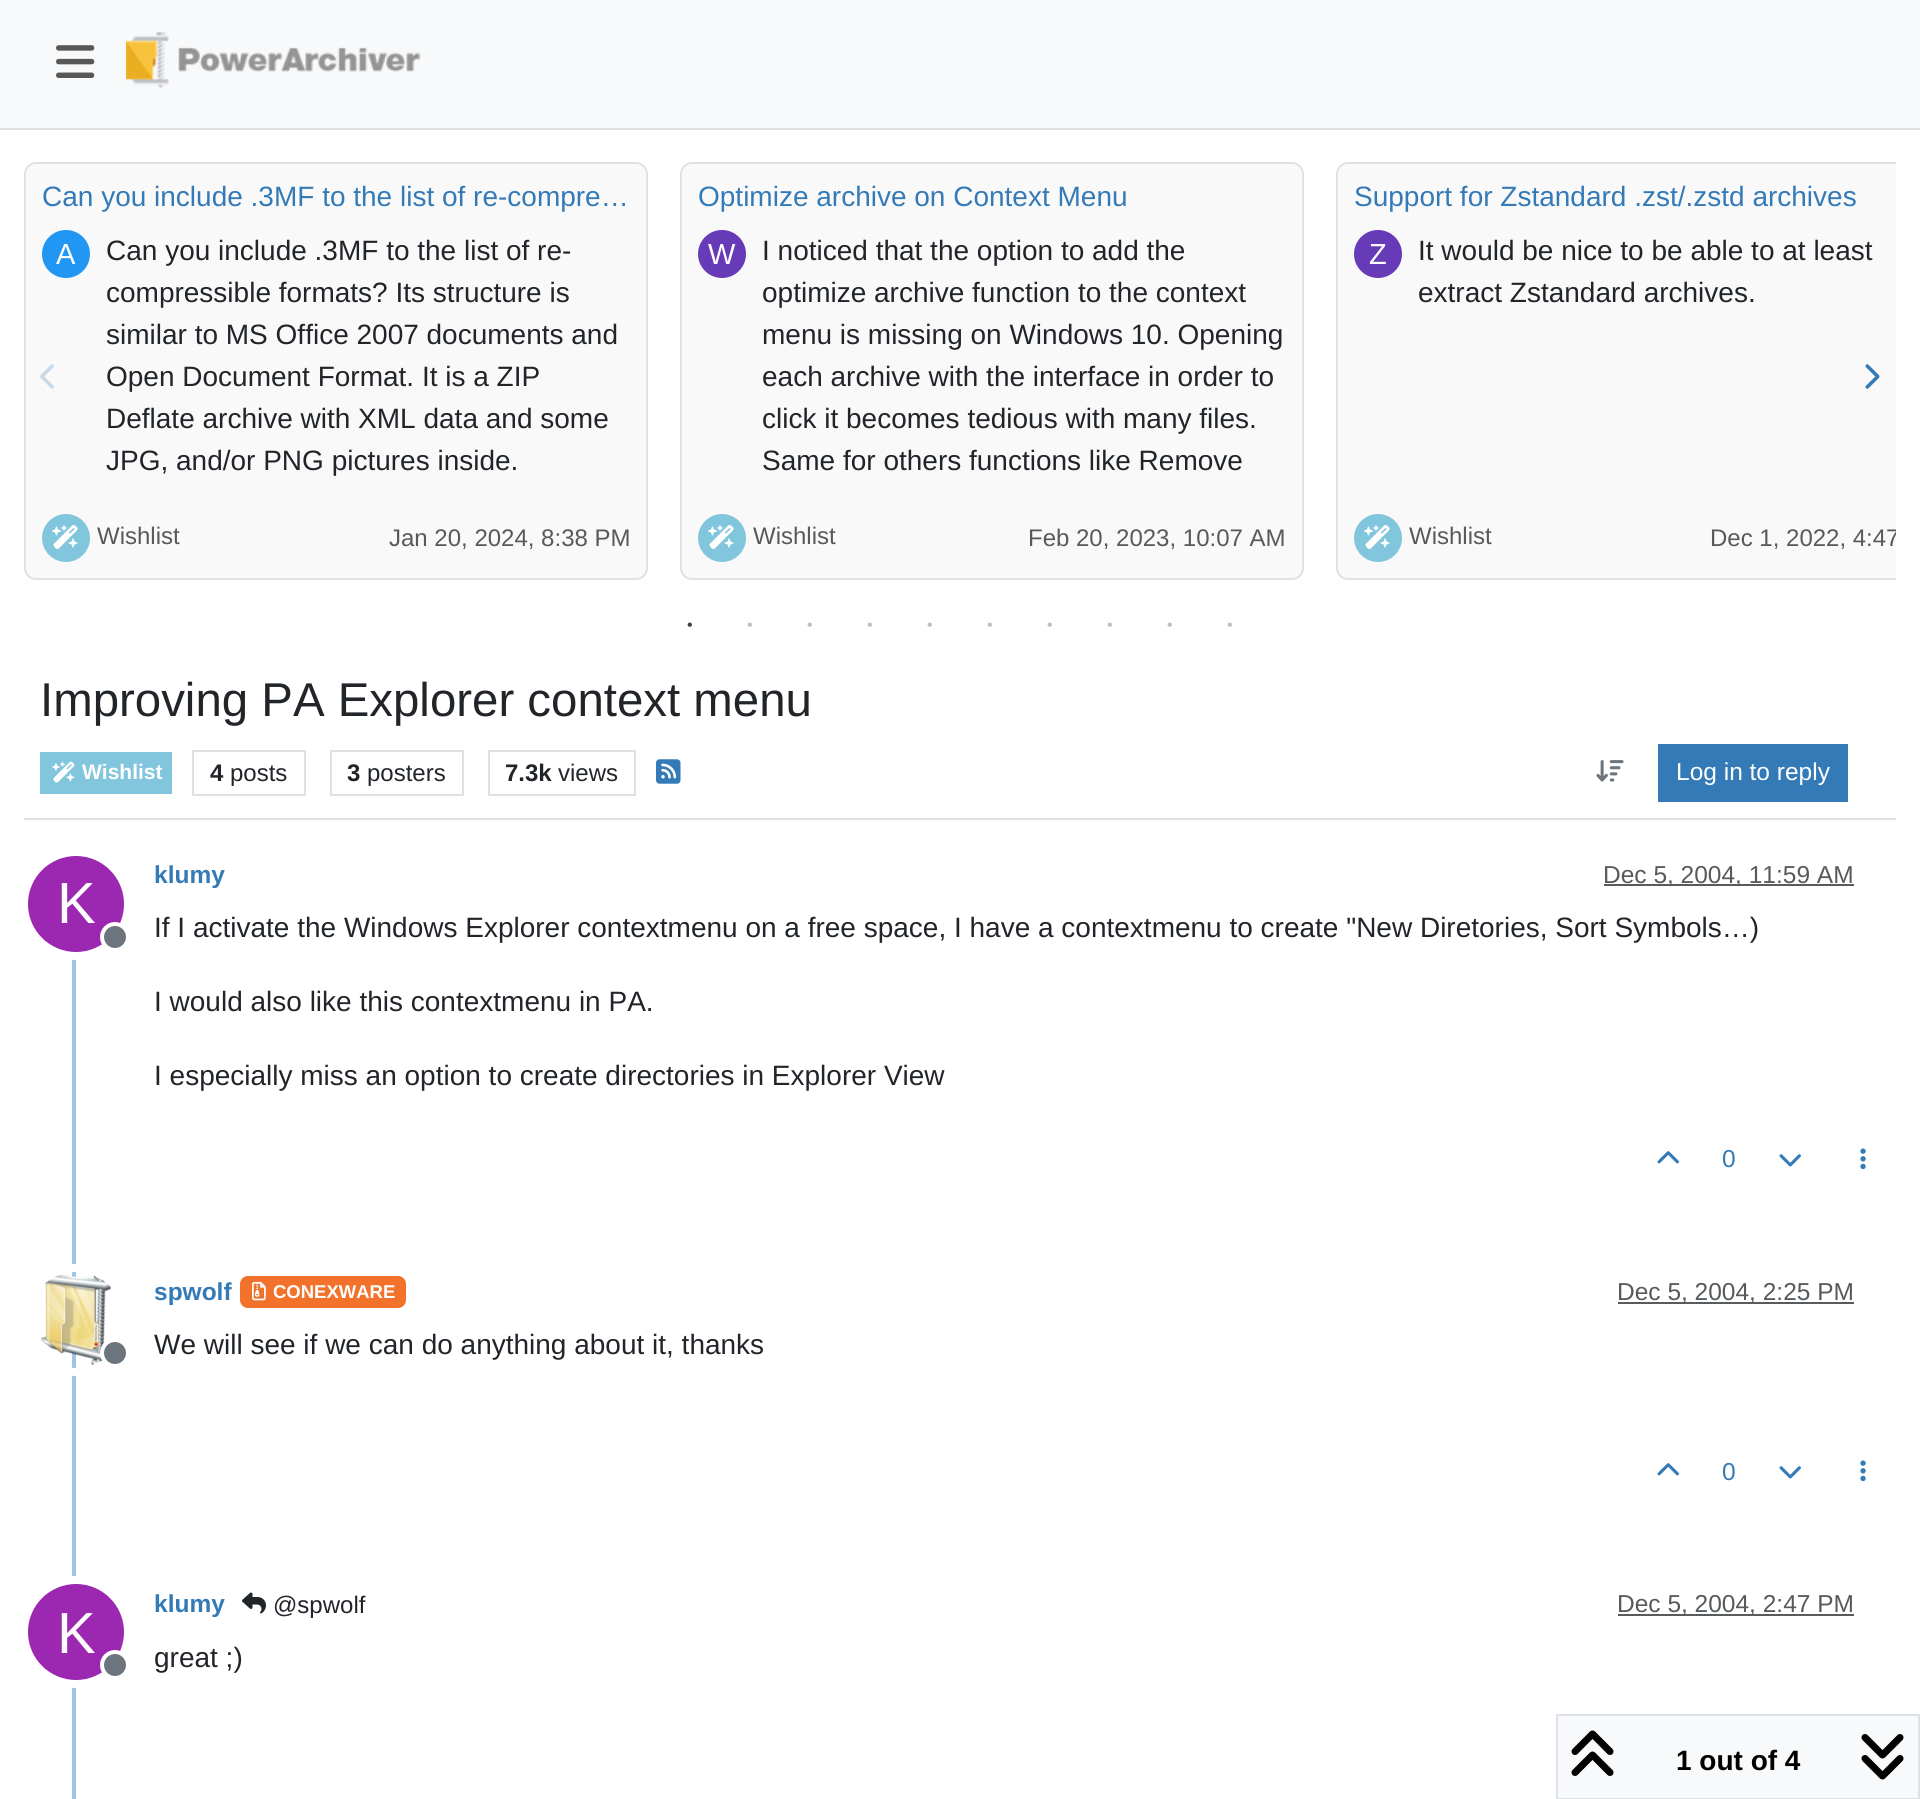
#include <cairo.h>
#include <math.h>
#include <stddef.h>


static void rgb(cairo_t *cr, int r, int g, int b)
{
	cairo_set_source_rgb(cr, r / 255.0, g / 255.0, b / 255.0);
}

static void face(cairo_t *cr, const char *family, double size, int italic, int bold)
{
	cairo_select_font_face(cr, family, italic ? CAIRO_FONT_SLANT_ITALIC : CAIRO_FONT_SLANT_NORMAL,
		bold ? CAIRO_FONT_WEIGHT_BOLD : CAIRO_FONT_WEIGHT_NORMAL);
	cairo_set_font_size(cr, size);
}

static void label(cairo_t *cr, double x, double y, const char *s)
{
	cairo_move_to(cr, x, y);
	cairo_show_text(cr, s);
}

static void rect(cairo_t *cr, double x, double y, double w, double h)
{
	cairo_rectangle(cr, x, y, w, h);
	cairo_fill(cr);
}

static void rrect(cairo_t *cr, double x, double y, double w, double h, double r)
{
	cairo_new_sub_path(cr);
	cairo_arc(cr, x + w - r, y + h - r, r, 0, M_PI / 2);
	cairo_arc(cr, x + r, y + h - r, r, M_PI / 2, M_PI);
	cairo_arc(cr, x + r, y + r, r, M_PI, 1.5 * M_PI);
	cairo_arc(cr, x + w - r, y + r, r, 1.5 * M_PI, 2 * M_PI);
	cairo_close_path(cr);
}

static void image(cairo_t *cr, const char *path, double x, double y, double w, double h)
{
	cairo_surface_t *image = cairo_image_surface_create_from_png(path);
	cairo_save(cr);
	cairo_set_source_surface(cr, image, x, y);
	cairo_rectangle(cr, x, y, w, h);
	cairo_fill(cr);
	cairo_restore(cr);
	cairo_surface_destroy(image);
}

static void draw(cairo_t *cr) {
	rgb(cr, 255, 255, 255);
	cairo_paint(cr);
	rgb(cr, 248, 249, 250);
	rect(cr, 0, 0, 1920, 128);
	rgb(cr, 222, 226, 230);
	rect(cr, 0, 128, 1920, 2);
	image(cr, "image0.png", 56, 45, 39, 33);
	image(cr, "image1.png", 126, 31, 295, 58);
	rgb(cr, 249, 249, 249);
	rrect(cr, 25, 163, 622, 416, 11);
	cairo_fill_preserve(cr);
	rgb(cr, 222, 226, 230);
	cairo_stroke(cr);
	face(cr, "Liberation Sans", 28, 0, 0);
	rgb(cr, 51, 122, 183);
	label(cr, 42, 206, "Can you include .3MF to the list of re-compre…");
	rgb(cr, 33, 150, 243);
	cairo_new_path(cr);
	cairo_arc(cr, 66, 254, 24, 0, 2 * M_PI);
	cairo_fill(cr);
	face(cr, "Liberation Sans", 29, 0, 0);
	rgb(cr, 255, 255, 255);
	label(cr, 56, 264, "A");
	face(cr, "Liberation Sans", 28, 0, 0);
	rgb(cr, 33, 37, 41);
	label(cr, 106, 260, "Can you include .3MF to the list of re-");
	label(cr, 106, 302, "compressible formats? Its structure is");
	label(cr, 106, 344, "similar to MS Office 2007 documents and");
	label(cr, 106, 386, "Open Document Format. It is a ZIP");
	label(cr, 106, 428, "Deflate archive with XML data and some");
	label(cr, 106, 470, "JPG, and/or PNG pictures inside.");
	rgb(cr, 129, 198, 221);
	cairo_new_path(cr);
	cairo_arc(cr, 66, 538, 24, 0, 2 * M_PI);
	cairo_fill(cr);
	image(cr, "image2.png", 52, 525, 26, 24);
	face(cr, "Liberation Sans", 24, 0, 0);
	rgb(cr, 87, 90, 93);
	label(cr, 97, 544, "Wishlist");
	label(cr, 389, 546, "Jan 20, 2024, 8:38 PM");
	rgb(cr, 249, 249, 249);
	rrect(cr, 681, 163, 622, 416, 11);
	cairo_fill_preserve(cr);
	rgb(cr, 222, 226, 230);
	cairo_stroke(cr);
	face(cr, "Liberation Sans", 28, 0, 0);
	rgb(cr, 51, 122, 183);
	label(cr, 698, 206, "Optimize archive on Context Menu");
	rgb(cr, 103, 58, 183);
	cairo_new_path(cr);
	cairo_arc(cr, 722, 254, 24, 0, 2 * M_PI);
	cairo_fill(cr);
	face(cr, "Liberation Sans", 29, 0, 0);
	rgb(cr, 255, 255, 255);
	label(cr, 708, 264, "W");
	face(cr, "Liberation Sans", 28, 0, 0);
	rgb(cr, 33, 37, 41);
	label(cr, 762, 260, "I noticed that the option to add the");
	label(cr, 762, 302, "optimize archive function to the context");
	label(cr, 762, 344, "menu is missing on Windows 10. Opening");
	label(cr, 762, 386, "each archive with the interface in order to");
	label(cr, 762, 428, "click it becomes tedious with many files.");
	label(cr, 762, 470, "Same for others functions like Remove");
	rgb(cr, 129, 198, 221);
	cairo_new_path(cr);
	cairo_arc(cr, 722, 538, 24, 0, 2 * M_PI);
	cairo_fill(cr);
	image(cr, "image2.png", 708, 525, 26, 24);
	face(cr, "Liberation Sans", 24, 0, 0);
	rgb(cr, 87, 90, 93);
	label(cr, 753, 544, "Wishlist");
	label(cr, 1028, 546, "Feb 20, 2023, 10:07 AM");
	rgb(cr, 249, 249, 249);
	cairo_new_path(cr);
	cairo_move_to(cr, 1348, 162);
	cairo_line_to(cr, 1896, 162);
	cairo_line_to(cr, 1896, 580);
	cairo_line_to(cr, 1348, 580);
	cairo_curve_to(cr, 1341.5, 580, 1336, 574.5, 1336, 568);
	cairo_line_to(cr, 1336, 174);
	cairo_curve_to(cr, 1336, 167.5, 1341.5, 162, 1348, 162);
	cairo_close_path(cr);
	cairo_fill(cr);
	cairo_save(cr);
	cairo_rectangle(cr, 24, 162, 1872, 434);
	cairo_clip(cr);
	rrect(cr, 1337, 163, 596, 416, 11);
	rgb(cr, 222, 226, 230);
	cairo_stroke(cr);
	cairo_restore(cr);
	face(cr, "Liberation Sans", 28, 0, 0);
	rgb(cr, 51, 122, 183);
	label(cr, 1354, 206, "Support for Zstandard .zst/.zstd archives");
	rgb(cr, 103, 58, 183);
	cairo_new_path(cr);
	cairo_arc(cr, 1378, 254, 24, 0, 2 * M_PI);
	cairo_fill(cr);
	face(cr, "Liberation Sans", 29, 0, 0);
	rgb(cr, 255, 255, 255);
	label(cr, 1369, 264, "Z");
	face(cr, "Liberation Sans", 28, 0, 0);
	rgb(cr, 33, 37, 41);
	label(cr, 1418, 260, "It would be nice to be able to at least");
	label(cr, 1418, 302, "extract Zstandard archives.");
	rgb(cr, 129, 198, 221);
	cairo_new_path(cr);
	cairo_arc(cr, 1378, 538, 24, 0, 2 * M_PI);
	cairo_fill(cr);
	image(cr, "image2.png", 1364, 525, 26, 24);
	face(cr, "Liberation Sans", 24, 0, 0);
	rgb(cr, 87, 90, 93);
	label(cr, 1409, 544, "Wishlist");
	cairo_save(cr);
	cairo_rectangle(cr, 1710, 520, 186, 36);
	cairo_clip(cr);
	label(cr, 1710, 546, "Dec 1, 2022, 4:47");
	cairo_restore(cr);
	image(cr, "image3.png", 40, 364, 14, 25);
	image(cr, "image4.png", 1865, 364, 15, 25);
	face(cr, "Liberation Sans", 16, 0, 0);
	rgb(cr, 64, 64, 64);
	label(cr, 687, 630, "•");
	rgb(cr, 191, 191, 191);
	label(cr, 747, 630, "•");
	label(cr, 807, 630, "•");
	label(cr, 867, 630, "•");
	label(cr, 927, 630, "•");
	label(cr, 987, 630, "•");
	label(cr, 1047, 630, "•");
	label(cr, 1107, 630, "•");
	label(cr, 1167, 630, "•");
	label(cr, 1227, 630, "•");
	rgb(cr, 222, 226, 230);
	rect(cr, 24, 818, 1872, 2);
	face(cr, "Liberation Sans", 47.4, 0, 0);
	rgb(cr, 33, 37, 41);
	label(cr, 40, 716, "Improving PA Explorer context menu");
	rgb(cr, 129, 198, 221);
	rect(cr, 40, 752, 132, 42);
	image(cr, "image5.png", 52, 761, 23, 22);
	face(cr, "Liberation Sans", 21, 0, 1);
	rgb(cr, 255, 255, 255);
	label(cr, 82, 779, "Wishlist");
	cairo_rectangle(cr, 193, 751, 112, 44);
	rgb(cr, 222, 226, 230);
	cairo_stroke(cr);
	face(cr, "Liberation Sans", 24, 0, 1);
	rgb(cr, 33, 37, 41);
	label(cr, 210, 781, "4");
	face(cr, "Liberation Sans", 24, 0, 0);
	label(cr, 230, 781, "posts");
	cairo_rectangle(cr, 331, 751, 132, 44);
	rgb(cr, 222, 226, 230);
	cairo_stroke(cr);
	face(cr, "Liberation Sans", 24, 0, 1);
	rgb(cr, 33, 37, 41);
	label(cr, 347, 781, "3");
	face(cr, "Liberation Sans", 24, 0, 0);
	label(cr, 367, 781, "posters");
	cairo_rectangle(cr, 489, 751, 146, 44);
	rgb(cr, 222, 226, 230);
	cairo_stroke(cr);
	face(cr, "Liberation Sans", 24, 0, 1);
	rgb(cr, 33, 37, 41);
	label(cr, 505, 781, "7.3k");
	face(cr, "Liberation Sans", 24, 0, 0);
	label(cr, 558, 781, "views");
	image(cr, "image6.png", 656, 759, 25, 25);
	image(cr, "image7.png", 1596, 760, 28, 22);
	rgb(cr, 51, 122, 183);
	rect(cr, 1658, 744, 190, 58);
	face(cr, "Liberation Sans", 24.5, 0, 0);
	rgb(cr, 255, 255, 255);
	label(cr, 1676, 780, "Log in to reply");
	rgb(cr, 160, 196, 228);
	rect(cr, 72, 852, 4, 947);
	face(cr, "Liberation Sans", 24.5, 0, 1);
	rgb(cr, 51, 122, 183);
	label(cr, 154, 883, "klumy");
	rgb(cr, 89, 92, 95);
	rect(cr, 1604, 884, 250, 2);
	face(cr, "Liberation Sans", 24.5, 0, 0);
	rgb(cr, 87, 90, 93);
	label(cr, 1603, 883, "Dec 5, 2004, 11:59 AM");
	cairo_new_path(cr);
	cairo_arc(cr, 76, 904, 52, 0, 2 * M_PI);
	rgb(cr, 255, 255, 255);
	cairo_set_line_width(cr, 8);
	cairo_stroke(cr);
	rgb(cr, 156, 39, 176);
	cairo_arc(cr, 76, 904, 48, 0, 2 * M_PI);
	cairo_fill(cr);
	face(cr, "Liberation Sans", 58, 0, 0);
	rgb(cr, 255, 255, 255);
	label(cr, 57, 923, "K");
	rgb(cr, 108, 117, 125);
	cairo_new_path(cr);
	cairo_arc(cr, 115, 937, 13, 0, 2 * M_PI);
	cairo_fill_preserve(cr);
	rgb(cr, 255, 255, 255);
	cairo_set_line_width(cr, 4);
	cairo_stroke(cr);
	face(cr, "Liberation Sans", 28, 0, 0);
	rgb(cr, 33, 37, 41);
	label(cr, 154, 937, "If I activate the Windows Explorer contextmenu on a free space, I have a contextmenu to create \"New Diretories, Sort Symbols…)");
	label(cr, 154, 1011, "I would also like this contextmenu in PA.");
	label(cr, 154, 1085, "I especially miss an option to create directories in Explorer View");
	image(cr, "image8.png", 1657, 1151, 22, 13);
	face(cr, "Liberation Sans", 24.5, 0, 0);
	rgb(cr, 51, 122, 183);
	label(cr, 1722, 1167, "0");
	image(cr, "image9.png", 1779, 1154, 22, 13);
	image(cr, "image10.png", 1860, 1148, 6, 22);
	cairo_arc(cr, 76, 1320, 52, 0, 2 * M_PI);
	rgb(cr, 255, 255, 255);
	cairo_set_line_width(cr, 8);
	cairo_stroke(cr);
	image(cr, "image11.png", 40, 1275, 72, 90);
	rgb(cr, 108, 117, 125);
	cairo_arc(cr, 115, 1353, 13, 0, 2 * M_PI);
	cairo_fill_preserve(cr);
	rgb(cr, 255, 255, 255);
	cairo_set_line_width(cr, 4);
	cairo_stroke(cr);
	face(cr, "Liberation Sans", 24.5, 0, 1);
	rgb(cr, 51, 122, 183);
	label(cr, 154, 1300, "spwolf");
	rgb(cr, 242, 114, 44);
	rrect(cr, 240, 1276, 166, 32, 8);
	cairo_fill(cr);
	image(cr, "image12.png", 252, 1281, 14, 20);
	face(cr, "Liberation Sans", 18.5, 0, 1);
	rgb(cr, 255, 255, 255);
	label(cr, 273, 1298, "CONEXWARE");
	rgb(cr, 89, 92, 95);
	rect(cr, 1618, 1302, 236, 2);
	face(cr, "Liberation Sans", 24.5, 0, 0);
	rgb(cr, 87, 90, 93);
	label(cr, 1617, 1300, "Dec 5, 2004, 2:25 PM");
	face(cr, "Liberation Sans", 28, 0, 0);
	rgb(cr, 33, 37, 41);
	label(cr, 154, 1354, "We will see if we can do anything about it, thanks");
	image(cr, "image8.png", 1657, 1463, 22, 13);
	face(cr, "Liberation Sans", 24.5, 0, 0);
	rgb(cr, 51, 122, 183);
	label(cr, 1722, 1480, "0");
	image(cr, "image9.png", 1779, 1466, 22, 13);
	image(cr, "image10.png", 1860, 1460, 6, 22);
	face(cr, "Liberation Sans", 24.5, 0, 1);
	label(cr, 154, 1612, "klumy");
	image(cr, "image13.png", 242, 1592, 24, 22);
	face(cr, "Liberation Sans", 24, 0, 0);
	rgb(cr, 33, 37, 41);
	label(cr, 273, 1613, "@spwolf");
	rgb(cr, 89, 92, 95);
	rect(cr, 1618, 1614, 236, 2);
	face(cr, "Liberation Sans", 24.5, 0, 0);
	rgb(cr, 87, 90, 93);
	label(cr, 1617, 1612, "Dec 5, 2004, 2:47 PM");
	cairo_new_path(cr);
	cairo_arc(cr, 76, 1632, 52, 0, 2 * M_PI);
	rgb(cr, 255, 255, 255);
	cairo_set_line_width(cr, 8);
	cairo_stroke(cr);
	rgb(cr, 156, 39, 176);
	cairo_arc(cr, 76, 1632, 48, 0, 2 * M_PI);
	cairo_fill(cr);
	face(cr, "Liberation Sans", 58, 0, 0);
	rgb(cr, 255, 255, 255);
	label(cr, 57, 1653, "K");
	rgb(cr, 108, 117, 125);
	cairo_new_path(cr);
	cairo_arc(cr, 115, 1665, 13, 0, 2 * M_PI);
	cairo_fill_preserve(cr);
	rgb(cr, 255, 255, 255);
	cairo_set_line_width(cr, 4);
	cairo_stroke(cr);
	face(cr, "Liberation Sans", 28, 0, 0);
	rgb(cr, 33, 37, 41);
	label(cr, 154, 1667, "great ;)");
	rgb(cr, 248, 249, 250);
	cairo_rectangle(cr, 1557, 1715, 362, 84);
	cairo_fill_preserve(cr);
	rgb(cr, 222, 226, 230);
	cairo_set_line_width(cr, 2);
	cairo_stroke(cr);
	image(cr, "image14.png", 1571, 1730, 43, 46);
	face(cr, "Liberation Sans", 28, 0, 1);
	rgb(cr, 0, 0, 0);
	label(cr, 1676, 1770, "1 out of 4");
	image(cr, "image15.png", 1861, 1734, 43, 46);
}

int main(void) {
	cairo_surface_t *surface = cairo_image_surface_create(CAIRO_FORMAT_RGB24, 1920, 1799);
	cairo_t *cr = cairo_create(surface);
	cairo_font_options_t *options = cairo_font_options_create();
	cairo_font_options_set_hint_metrics(options, CAIRO_HINT_METRICS_OFF);
	cairo_font_options_set_hint_style(options, CAIRO_HINT_STYLE_NONE);
	cairo_set_font_options(cr, options);
	cairo_set_miter_limit(cr, 4);
	draw(cr);
	cairo_surface_write_to_png(surface, "render.png");
	cairo_font_options_destroy(options);
	cairo_destroy(cr);
	cairo_surface_destroy(surface);
	return 0;
}
